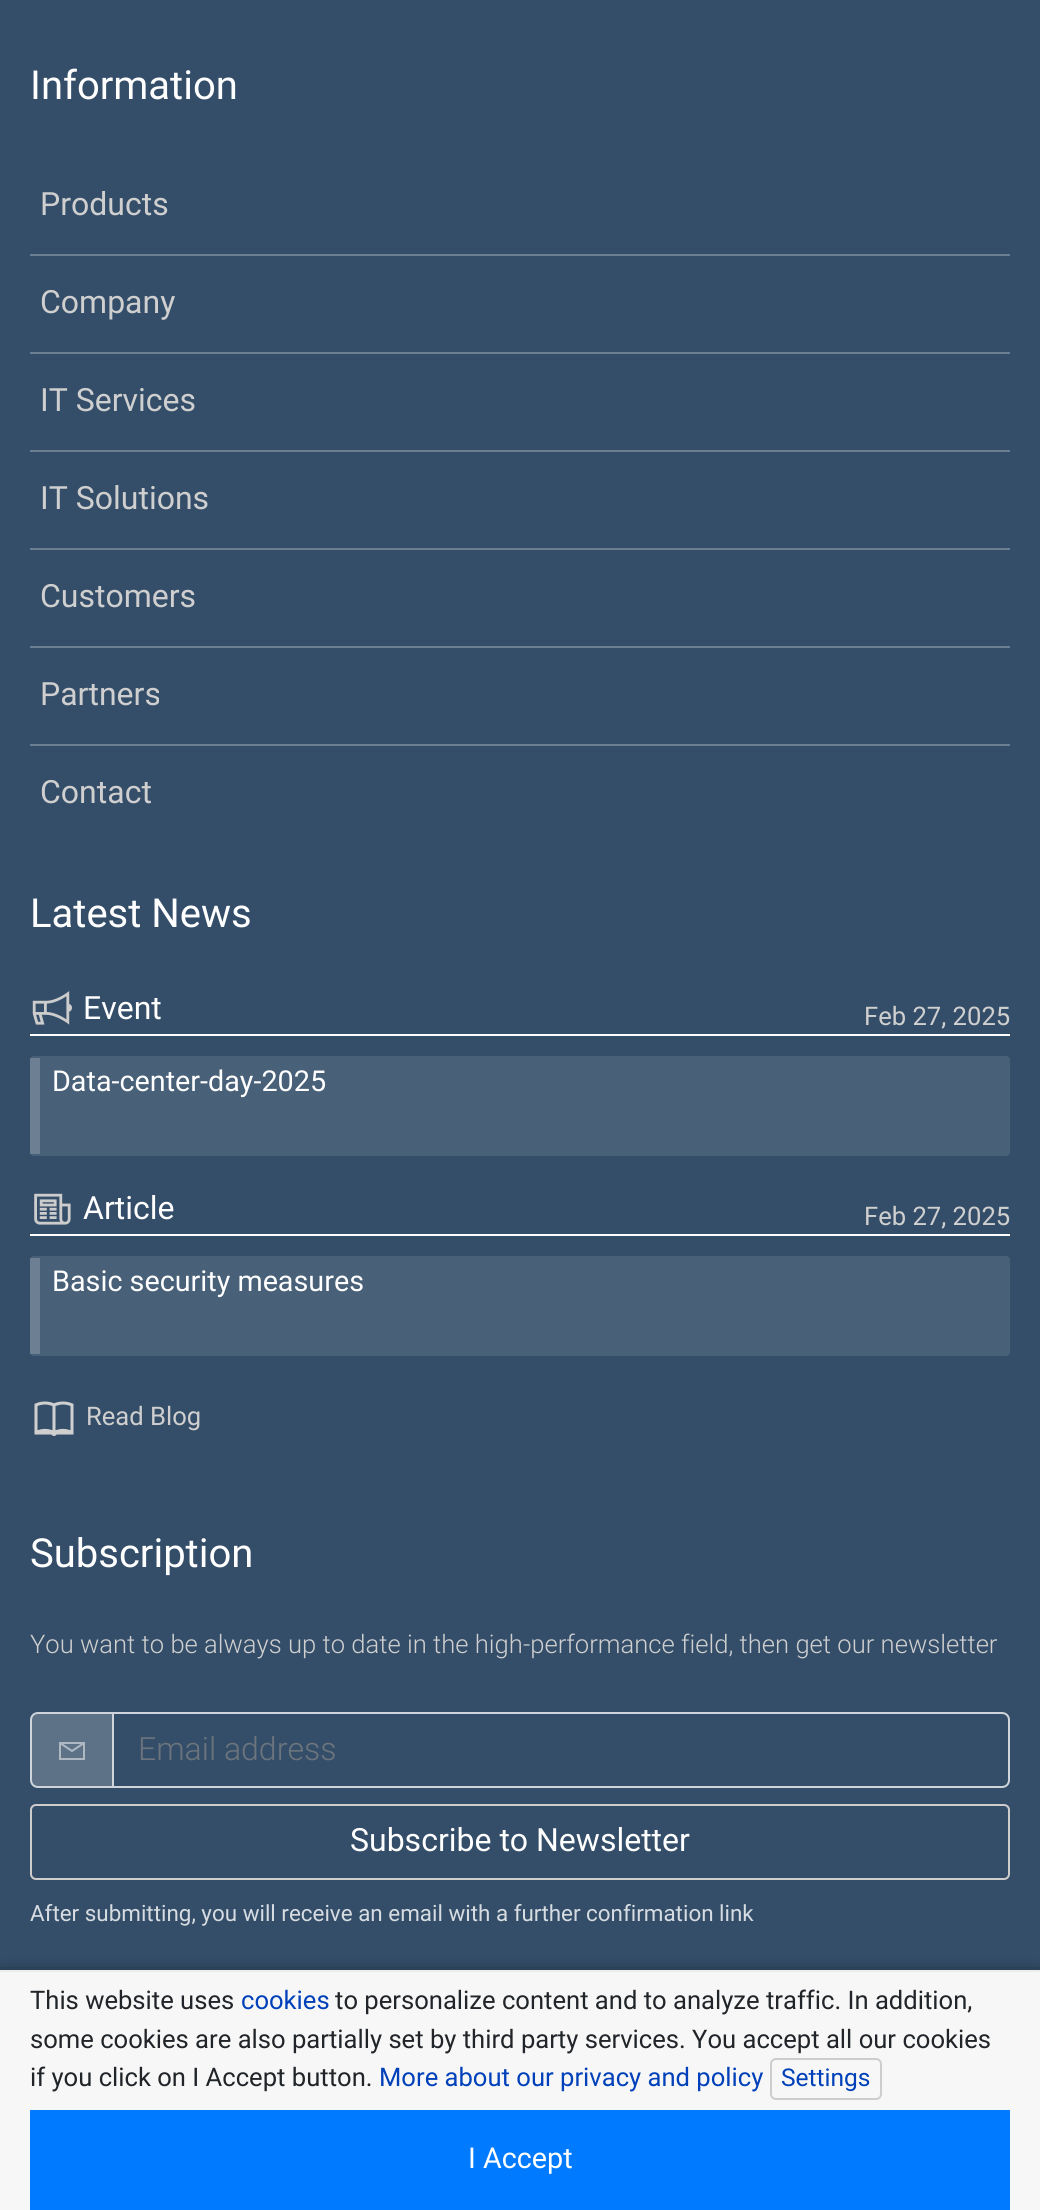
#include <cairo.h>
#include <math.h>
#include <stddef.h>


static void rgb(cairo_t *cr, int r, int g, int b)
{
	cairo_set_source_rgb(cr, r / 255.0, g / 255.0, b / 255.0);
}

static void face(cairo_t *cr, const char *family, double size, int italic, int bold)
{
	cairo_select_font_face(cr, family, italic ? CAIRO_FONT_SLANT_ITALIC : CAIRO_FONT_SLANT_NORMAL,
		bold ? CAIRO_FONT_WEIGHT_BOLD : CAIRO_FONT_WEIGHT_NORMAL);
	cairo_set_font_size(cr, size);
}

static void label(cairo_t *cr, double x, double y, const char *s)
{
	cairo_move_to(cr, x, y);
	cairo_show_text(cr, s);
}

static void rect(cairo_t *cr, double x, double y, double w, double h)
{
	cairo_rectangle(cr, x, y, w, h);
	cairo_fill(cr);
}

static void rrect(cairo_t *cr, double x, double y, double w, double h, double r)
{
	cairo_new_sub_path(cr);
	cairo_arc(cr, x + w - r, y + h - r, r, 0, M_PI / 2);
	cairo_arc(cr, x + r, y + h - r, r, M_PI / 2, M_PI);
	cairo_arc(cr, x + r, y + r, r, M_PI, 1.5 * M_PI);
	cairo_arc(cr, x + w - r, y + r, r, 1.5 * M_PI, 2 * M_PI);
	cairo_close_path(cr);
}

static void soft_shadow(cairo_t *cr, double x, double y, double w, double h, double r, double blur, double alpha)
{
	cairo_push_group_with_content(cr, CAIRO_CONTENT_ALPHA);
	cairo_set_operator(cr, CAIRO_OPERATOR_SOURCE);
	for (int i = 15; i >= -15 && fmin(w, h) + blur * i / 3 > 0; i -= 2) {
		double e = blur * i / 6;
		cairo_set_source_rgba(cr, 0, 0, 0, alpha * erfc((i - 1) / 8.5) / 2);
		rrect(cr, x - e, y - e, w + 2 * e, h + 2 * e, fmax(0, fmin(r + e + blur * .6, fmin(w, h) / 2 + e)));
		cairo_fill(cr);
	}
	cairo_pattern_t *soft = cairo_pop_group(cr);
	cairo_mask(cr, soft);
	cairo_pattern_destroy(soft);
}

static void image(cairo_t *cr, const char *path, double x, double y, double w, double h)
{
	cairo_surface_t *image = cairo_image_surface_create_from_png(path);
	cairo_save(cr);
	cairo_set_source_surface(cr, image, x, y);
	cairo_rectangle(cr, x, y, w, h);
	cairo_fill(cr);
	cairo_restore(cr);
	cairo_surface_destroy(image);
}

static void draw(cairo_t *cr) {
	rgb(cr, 52, 78, 105);
	cairo_paint(cr);
	face(cr, "Roboto", 40, 0, 0);
	rgb(cr, 255, 255, 255);
	label(cr, 30, 99, "Information");
	rgb(cr, 108, 126, 145);
	rect(cr, 30, 254, 980, 2);
	face(cr, "Roboto", 32, 0, 0);
	rgb(cr, 207, 207, 207);
	label(cr, 40, 215, "Products");
	rgb(cr, 108, 126, 145);
	rect(cr, 30, 352, 980, 2);
	rgb(cr, 207, 207, 207);
	label(cr, 40, 313, "Company");
	rgb(cr, 108, 126, 145);
	rect(cr, 30, 450, 980, 2);
	rgb(cr, 207, 207, 207);
	label(cr, 40, 411, "IT Services");
	rgb(cr, 108, 126, 145);
	rect(cr, 30, 548, 980, 2);
	rgb(cr, 207, 207, 207);
	label(cr, 40, 509, "IT Solutions");
	rgb(cr, 108, 126, 145);
	rect(cr, 30, 646, 980, 2);
	rgb(cr, 207, 207, 207);
	label(cr, 40, 607, "Customers");
	rgb(cr, 108, 126, 145);
	rect(cr, 30, 744, 980, 2);
	rgb(cr, 207, 207, 207);
	label(cr, 40, 705, "Partners");
	label(cr, 40, 803, "Contact");
	face(cr, "Roboto", 40, 0, 0);
	rgb(cr, 255, 255, 255);
	label(cr, 30, 927, "Latest News");
	rect(cr, 30, 1034, 980, 2);
	image(cr, "image0.png", 32, 991, 40, 34);
	face(cr, "Roboto", 32, 0, 0);
	label(cr, 83, 1019, "Event");
	face(cr, "Roboto", 25.6, 0, 0);
	rgb(cr, 207, 207, 207);
	label(cr, 864, 1025, "Feb 27, 2025");
	rgb(cr, 72, 96, 120);
	rrect(cr, 30, 1056, 980, 100, 4);
	cairo_fill(cr);
	cairo_set_source_rgba(cr, 1, 1, 1, 0.2);
	rect(cr, 30, 1058, 10, 96);
	face(cr, "Roboto", 28.75, 0, 0);
	rgb(cr, 255, 255, 255);
	label(cr, 52, 1091, "Data-center-day-2025");
	rect(cr, 30, 1234, 980, 2);
	image(cr, "image1.png", 34, 1193, 37, 32);
	face(cr, "Roboto", 32, 0, 0);
	label(cr, 83, 1219, "Article");
	face(cr, "Roboto", 25.6, 0, 0);
	rgb(cr, 207, 207, 207);
	label(cr, 864, 1225, "Feb 27, 2025");
	rgb(cr, 72, 96, 120);
	rrect(cr, 30, 1256, 980, 100, 4);
	cairo_fill(cr);
	cairo_set_source_rgba(cr, 1, 1, 1, 0.2);
	rect(cr, 30, 1258, 10, 96);
	face(cr, "Roboto", 28.75, 0, 0);
	rgb(cr, 255, 255, 255);
	label(cr, 52, 1291, "Basic security measures");
	image(cr, "image2.png", 34, 1401, 40, 35);
	face(cr, "Roboto", 25.6, 0, 0);
	rgb(cr, 207, 207, 207);
	label(cr, 86, 1425, "Read Blog");
	face(cr, "Roboto", 40, 0, 0);
	rgb(cr, 255, 255, 255);
	label(cr, 30, 1567, "Subscription");
	face(cr, "Roboto Light", 25.6, 0, 0);
	rgb(cr, 207, 207, 207);
	label(cr, 30, 1653, "You want to be always up to date in the high-performance field, then get our newsletter");
	rgb(cr, 93, 113, 135);
	cairo_new_path(cr);
	cairo_move_to(cr, 38, 1713);
	cairo_line_to(cr, 113, 1713);
	cairo_line_to(cr, 113, 1787);
	cairo_line_to(cr, 38, 1787);
	cairo_curve_to(cr, 34, 1787, 31, 1784, 31, 1780);
	cairo_line_to(cr, 31, 1720);
	cairo_curve_to(cr, 31, 1716, 34, 1713, 38, 1713);
	cairo_close_path(cr);
	cairo_fill_preserve(cr);
	rgb(cr, 206, 212, 218);
	cairo_stroke(cr);
	image(cr, "image3.png", 59, 1742, 26, 18);
	cairo_new_path(cr);
	cairo_move_to(cr, 113, 1713);
	cairo_line_to(cr, 1002, 1713);
	cairo_curve_to(cr, 1006, 1713, 1009, 1716, 1009, 1720);
	cairo_line_to(cr, 1009, 1780);
	cairo_curve_to(cr, 1009, 1784, 1006, 1787, 1002, 1787);
	cairo_line_to(cr, 113, 1787);
	cairo_close_path(cr);
	cairo_stroke(cr);
	face(cr, "Roboto Light", 32, 0, 0);
	rgb(cr, 108, 117, 125);
	label(cr, 138, 1760, "Email address");
	rrect(cr, 31, 1805, 978, 74, 5);
	rgb(cr, 207, 204, 204);
	cairo_stroke(cr);
	face(cr, "Roboto", 32, 0, 0);
	rgb(cr, 255, 255, 255);
	label(cr, 350, 1851, "Subscribe to Newsletter");
	face(cr, "Roboto", 22.4, 0, 0);
	rgb(cr, 214, 220, 225);
	label(cr, 30, 1921, "After submitting, you will receive an email with a further confirmation link");
	rgb(cr, 0, 0, 0);
	soft_shadow(cr, 0, 1978, 1040, 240, 0, 10, 1);
	rgb(cr, 247, 247, 247);
	rect(cr, 0, 1972, 1040, 238);
	rgb(cr, 238, 238, 238);
	rect(cr, 0, 1970, 1040, 2);
	face(cr, "Roboto", 25.6, 0, 0);
	rgb(cr, 33, 37, 41);
	label(cr, 30, 2009, "This website uses");
	rgb(cr, 0, 64, 185);
	label(cr, 241, 2009, "cookies");
	rgb(cr, 33, 37, 41);
	label(cr, 335, 2009, "to personalize content and to analyze traffic. In addition,");
	label(cr, 30, 2048, "some cookies are also partially set by third party services. You accept all our cookies");
	label(cr, 30, 2086, "if you click on I Accept button.");
	rgb(cr, 0, 64, 185);
	label(cr, 379, 2086, "More about our privacy and policy");
	rrect(cr, 771, 2059, 110, 40, 5);
	rgb(cr, 207, 204, 204);
	cairo_stroke(cr);
	face(cr, "Roboto", 24.5, 0, 0);
	rgb(cr, 0, 64, 185);
	label(cr, 781, 2086, "Settings");
	rgb(cr, 0, 123, 255);
	rect(cr, 30, 2110, 980, 100);
	face(cr, "Roboto", 28.75, 0, 0);
	rgb(cr, 255, 255, 255);
	label(cr, 468, 2168, "I Accept");
}

int main(void) {
	cairo_surface_t *surface = cairo_image_surface_create(CAIRO_FORMAT_RGB24, 1040, 2210);
	cairo_t *cr = cairo_create(surface);
	cairo_font_options_t *options = cairo_font_options_create();
	cairo_font_options_set_hint_metrics(options, CAIRO_HINT_METRICS_OFF);
	cairo_font_options_set_hint_style(options, CAIRO_HINT_STYLE_NONE);
	cairo_set_font_options(cr, options);
	cairo_set_miter_limit(cr, 4);
	draw(cr);
	cairo_surface_write_to_png(surface, "render.png");
	cairo_font_options_destroy(options);
	cairo_destroy(cr);
	cairo_surface_destroy(surface);
	return 0;
}
